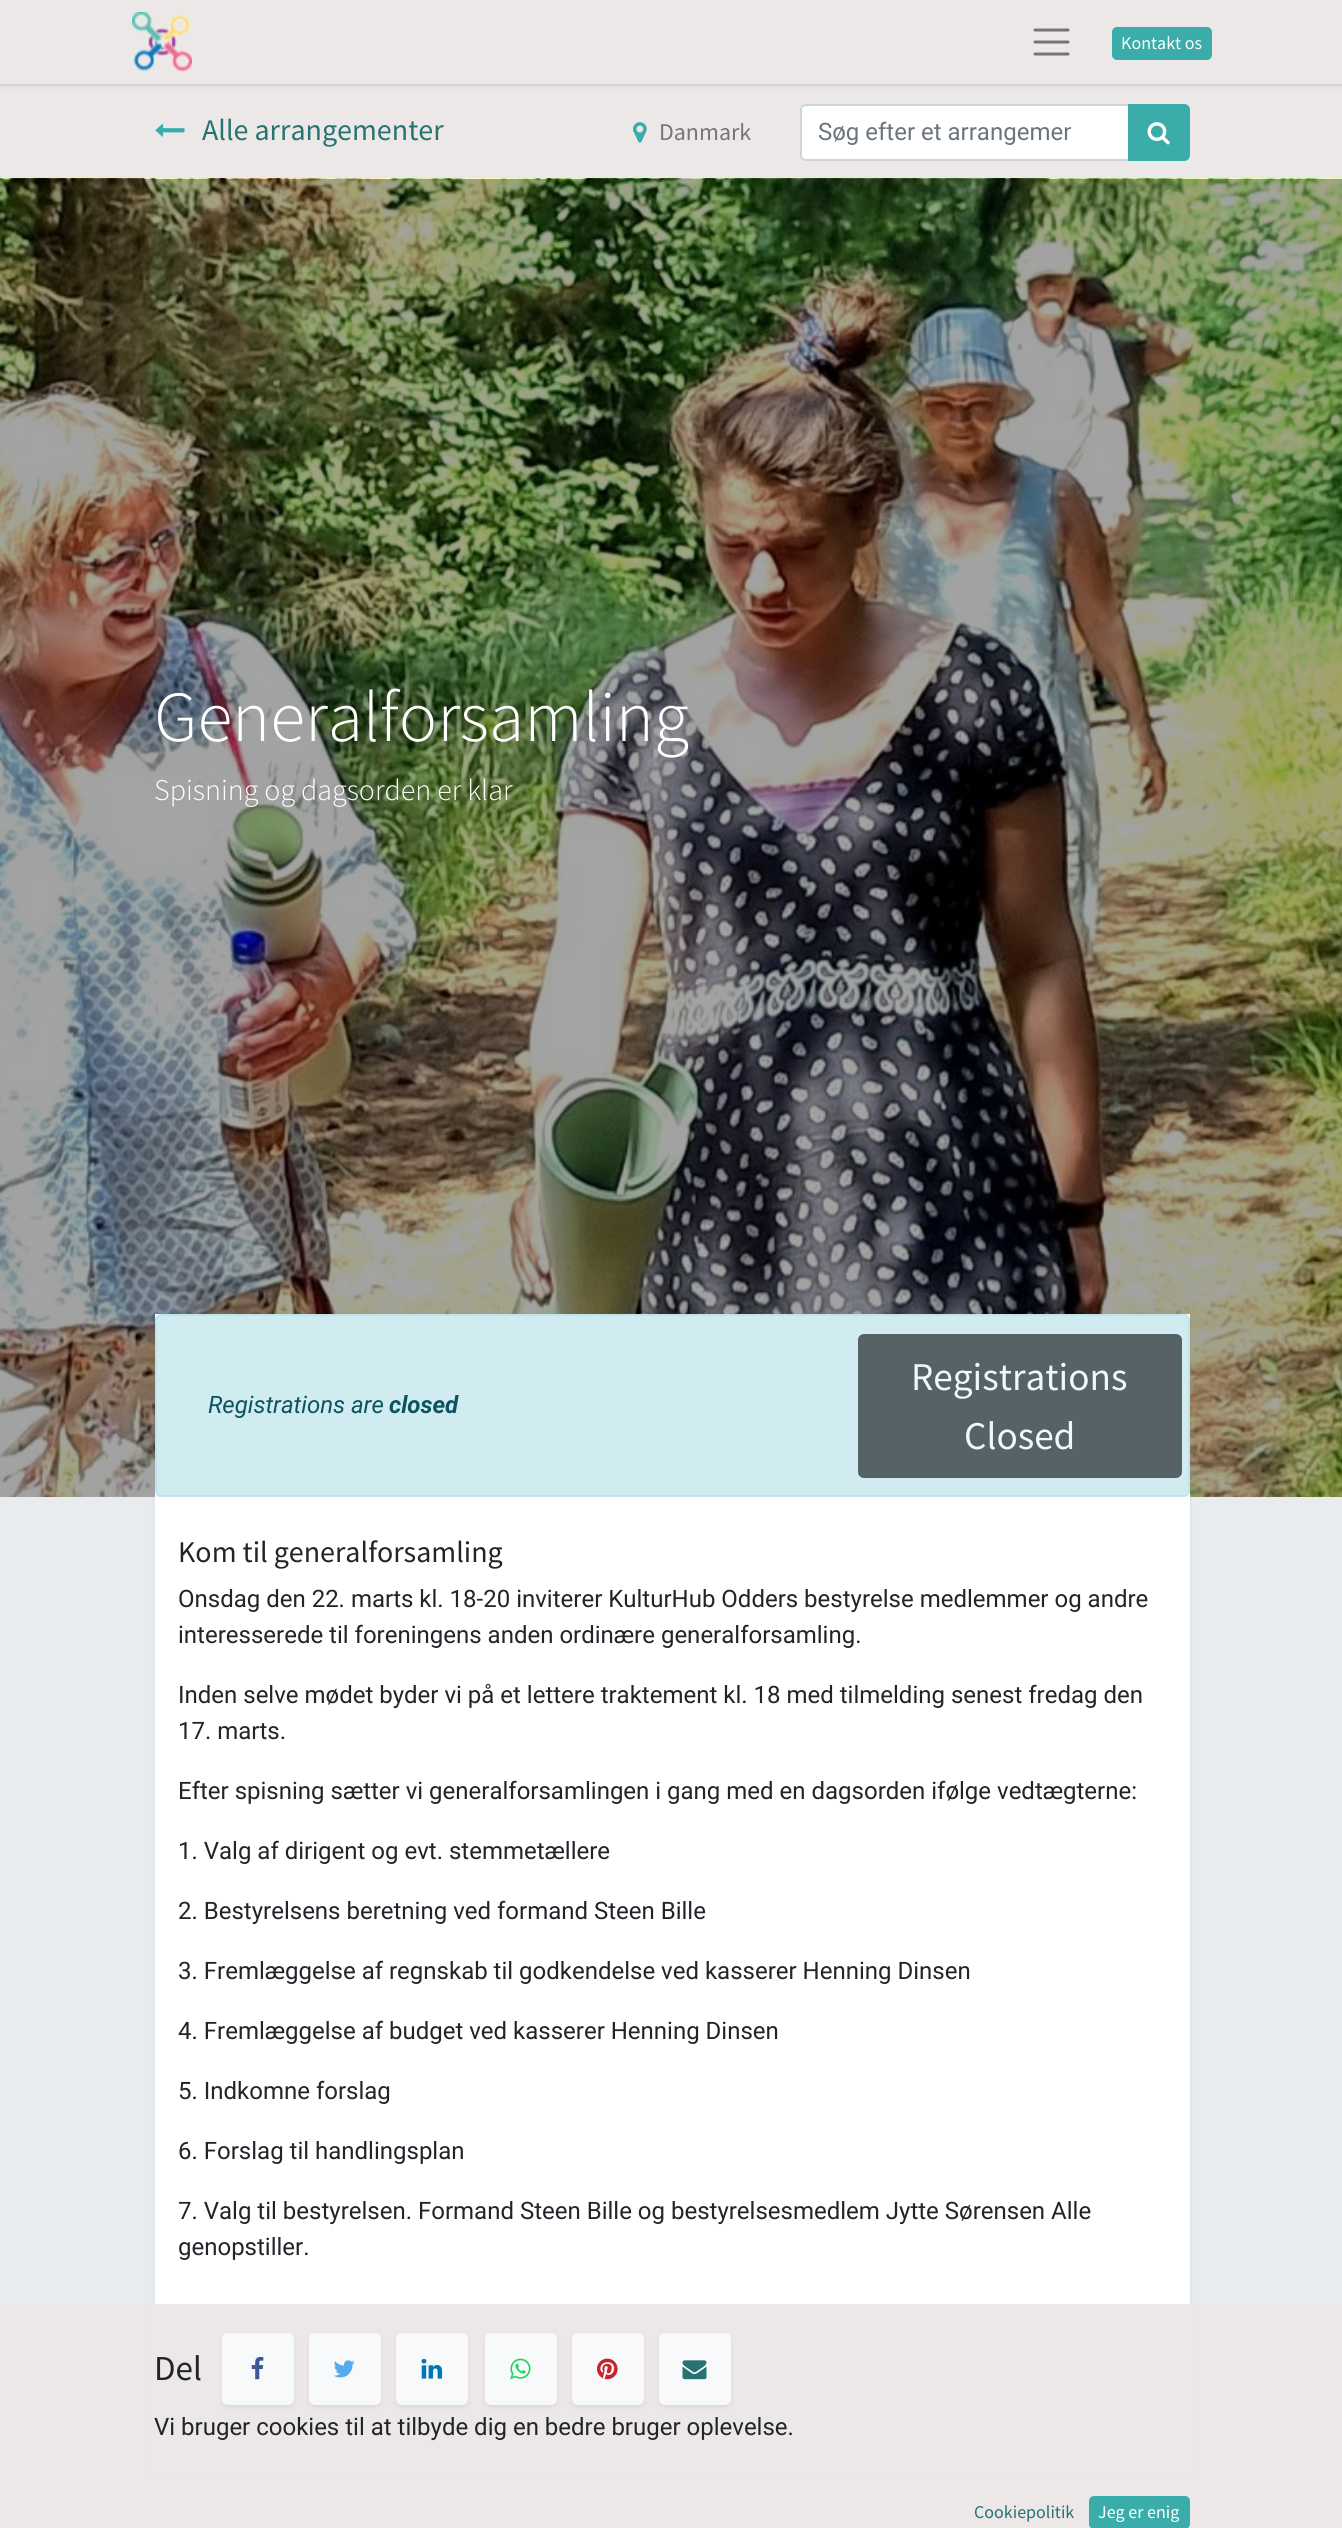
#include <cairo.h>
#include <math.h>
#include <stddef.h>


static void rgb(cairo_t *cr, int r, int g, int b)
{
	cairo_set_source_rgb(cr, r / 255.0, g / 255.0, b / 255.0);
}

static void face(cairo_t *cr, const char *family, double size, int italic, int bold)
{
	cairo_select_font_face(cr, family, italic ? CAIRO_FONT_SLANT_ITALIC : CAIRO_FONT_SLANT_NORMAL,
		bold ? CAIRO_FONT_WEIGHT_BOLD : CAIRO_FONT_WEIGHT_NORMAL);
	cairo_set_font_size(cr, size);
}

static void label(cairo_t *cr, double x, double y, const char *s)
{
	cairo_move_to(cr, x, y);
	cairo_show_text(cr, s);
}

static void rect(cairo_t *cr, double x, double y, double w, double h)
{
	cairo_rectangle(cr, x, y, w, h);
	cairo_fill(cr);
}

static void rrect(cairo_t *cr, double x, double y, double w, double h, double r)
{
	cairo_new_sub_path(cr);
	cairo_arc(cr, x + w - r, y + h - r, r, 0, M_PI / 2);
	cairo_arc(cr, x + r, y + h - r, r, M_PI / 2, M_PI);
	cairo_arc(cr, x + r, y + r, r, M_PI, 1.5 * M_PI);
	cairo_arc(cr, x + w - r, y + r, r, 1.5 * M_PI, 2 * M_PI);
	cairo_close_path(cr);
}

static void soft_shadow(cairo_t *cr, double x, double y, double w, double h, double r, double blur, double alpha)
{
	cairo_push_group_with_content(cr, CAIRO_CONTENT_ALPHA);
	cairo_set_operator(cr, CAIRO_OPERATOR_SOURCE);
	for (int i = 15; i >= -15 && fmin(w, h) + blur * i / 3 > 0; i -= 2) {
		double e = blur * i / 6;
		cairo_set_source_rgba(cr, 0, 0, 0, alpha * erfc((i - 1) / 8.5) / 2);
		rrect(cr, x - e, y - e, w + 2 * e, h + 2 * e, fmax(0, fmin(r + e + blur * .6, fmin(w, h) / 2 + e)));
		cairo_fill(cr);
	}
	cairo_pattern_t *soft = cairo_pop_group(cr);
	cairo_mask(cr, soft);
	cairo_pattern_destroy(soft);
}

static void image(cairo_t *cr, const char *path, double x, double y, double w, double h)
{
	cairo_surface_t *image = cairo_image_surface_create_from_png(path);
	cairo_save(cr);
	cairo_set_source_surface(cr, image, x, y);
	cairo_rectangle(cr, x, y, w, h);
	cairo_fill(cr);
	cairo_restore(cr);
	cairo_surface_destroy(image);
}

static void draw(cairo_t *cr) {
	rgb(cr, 236, 232, 232);
	cairo_paint(cr);
	rgb(cr, 222, 226, 230);
	rect(cr, 0, 84, 1342, 2);
	rgb(cr, 0, 0, 0);
	soft_shadow(cr, 0, 3, 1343, 84, 0, 3, 0.07);
	rgb(cr, 236, 232, 232);
	rect(cr, 0, 0, 1342, 84);
	image(cr, "image0.png", 132, 12, 60, 60);
	cairo_new_path(cr);
	cairo_move_to(cr, 1035, 30);
	cairo_line_to(cr, 1068, 30);
	cairo_move_to(cr, 1035, 42);
	cairo_line_to(cr, 1068, 42);
	cairo_move_to(cr, 1035, 54);
	cairo_line_to(cr, 1068, 54);
	rgb(cr, 118, 116, 116);
	cairo_set_line_width(cr, 3);
	cairo_set_line_cap(cr, CAIRO_LINE_CAP_ROUND);
	cairo_stroke(cr);
	rgb(cr, 58, 173, 170);
	rrect(cr, 1113, 28, 98, 31, 4);
	cairo_fill_preserve(cr);
	cairo_set_line_width(cr, 2);
	cairo_set_line_cap(cr, CAIRO_LINE_CAP_BUTT);
	cairo_stroke(cr);
	face(cr, "Source Sans Pro", 18, 0, 0);
	rgb(cr, 255, 255, 255);
	label(cr, 1121, 49, "Kontakt os");
	image(cr, "image1.png", 155, 123, 30, 14);
	face(cr, "Source Sans Pro", 30, 0, 0);
	rgb(cr, 38, 115, 114);
	label(cr, 202, 140, "Alle arrangementer");
	image(cr, "image2.png", 633, 122, 14, 21);
	face(cr, "Source Sans Pro", 24, 0, 0);
	rgb(cr, 118, 116, 116);
	label(cr, 659, 140, "Danmark");
	rgb(cr, 255, 255, 255);
	cairo_new_path(cr);
	cairo_move_to(cr, 806, 105);
	cairo_line_to(cr, 1129, 105);
	cairo_line_to(cr, 1129, 160);
	cairo_line_to(cr, 806, 160);
	cairo_curve_to(cr, 803, 160, 801, 158, 801, 155);
	cairo_line_to(cr, 801, 110);
	cairo_curve_to(cr, 801, 107, 803, 105, 806, 105);
	cairo_close_path(cr);
	cairo_fill_preserve(cr);
	rgb(cr, 206, 212, 218);
	cairo_stroke(cr);
	cairo_save(cr);
	cairo_rectangle(cr, 819, 119, 252, 28);
	cairo_clip(cr);
	face(cr, "Roboto", 24, 0, 0);
	rgb(cr, 108, 117, 125);
	label(cr, 818, 140, "Søg efter et arrangemen");
	cairo_restore(cr);
	rgb(cr, 58, 173, 170);
	cairo_new_path(cr);
	cairo_move_to(cr, 1129, 105);
	cairo_line_to(cr, 1184, 105);
	cairo_curve_to(cr, 1187, 105, 1189, 107, 1189, 110);
	cairo_line_to(cr, 1189, 155);
	cairo_curve_to(cr, 1189, 158, 1187, 160, 1184, 160);
	cairo_line_to(cr, 1129, 160);
	cairo_close_path(cr);
	cairo_fill_preserve(cr);
	cairo_stroke(cr);
	image(cr, "image3.png", 1147, 122, 23, 23);
	image(cr, "image4.png", 0, 178, 1342, 1319);
	face(cr, "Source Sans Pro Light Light", 71.75, 0, 0);
	rgb(cr, 255, 255, 255);
	label(cr, 154, 741, "Generalforsamling");
	face(cr, "Source Sans Pro Light Light", 30, 0, 0);
	label(cr, 154, 800, "Spisning og dagsorden er klar");
	rect(cr, 155, 1314, 1035, 183);
	rgb(cr, 209, 236, 241);
	rrect(cr, 156, 1315, 1033, 181, 5);
	cairo_fill_preserve(cr);
	rgb(cr, 190, 229, 235);
	cairo_stroke(cr);
	face(cr, "Roboto", 24, 1, 0);
	rgb(cr, 12, 84, 96);
	label(cr, 208, 1413, "Registrations are");
	face(cr, "Roboto", 24, 1, 1);
	label(cr, 389, 1413, "closed");
	rgb(cr, 87, 98, 102);
	rrect(cr, 859, 1335, 322, 142, 5);
	cairo_fill_preserve(cr);
	cairo_stroke(cr);
	face(cr, "Source Sans Pro", 39.25, 0, 0);
	rgb(cr, 239, 248, 250);
	label(cr, 911, 1390, "Registrations");
	label(cr, 964, 1449, "Closed");
	rgb(cr, 233, 236, 239);
	rect(cr, 0, 1497, 1342, 807);
	cairo_save(cr);
	cairo_rectangle(cr, 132, 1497, 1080, 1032);
	cairo_clip(cr);
	rgb(cr, 0, 0, 0);
	soft_shadow(cr, 155, 1464, 1035, 1008, 0, 3, 0.07);
	cairo_restore(cr);
	rgb(cr, 255, 255, 255);
	rect(cr, 155, 1497, 1035, 807);
	face(cr, "Source Sans Pro", 30, 0, 0);
	rgb(cr, 33, 37, 41);
	label(cr, 178, 1562, "Kom til generalforsamling");
	face(cr, "Roboto", 24, 0, 0);
	label(cr, 178, 1607, "Onsdag den 22. marts kl. 18-20 inviterer KulturHub Odders bestyrelse medlemmer og andre");
	label(cr, 178, 1643, "interesserede til foreningens anden ordinære generalforsamling.");
	label(cr, 178, 1703, "Inden selve mødet byder vi på et lettere traktement kl. 18 med tilmelding senest fredag den");
	label(cr, 178, 1739, "17. marts.");
	label(cr, 178, 1799, "Efter spisning sætter vi generalforsamlingen i gang med en dagsorden ifølge vedtægterne:");
	label(cr, 178, 1859, "1. Valg af dirigent og evt. stemmetællere");
	label(cr, 178, 1919, "2. Bestyrelsens beretning ved formand Steen Bille");
	label(cr, 178, 1979, "3. Fremlæggelse af regnskab til godkendelse ved kasserer Henning Dinsen");
	label(cr, 178, 2039, "4. Fremlæggelse af budget ved kasserer Henning Dinsen");
	label(cr, 178, 2099, "5. Indkomne forslag");
	label(cr, 178, 2159, "6. Forslag til handlingsplan");
	label(cr, 178, 2219, "7. Valg til bestyrelsen. Formand Steen Bille og bestyrelsesmedlem Jytte Sørensen Alle");
	label(cr, 178, 2255, "genopstiller.");
	rgb(cr, 236, 232, 232);
	rect(cr, 152, 2304, 1041, 171);
	face(cr, "Source Sans Pro", 35, 0, 0);
	rgb(cr, 33, 37, 41);
	label(cr, 154, 2380, "Del");
	rgb(cr, 0, 0, 0);
	soft_shadow(cr, 222, 2336, 72, 72, 6, 3, 0.07);
	rgb(cr, 248, 249, 250);
	rrect(cr, 222, 2333, 72, 72, 6);
	cairo_fill(cr);
	image(cr, "image5.png", 251, 2356, 13, 24);
	rgb(cr, 0, 0, 0);
	soft_shadow(cr, 309, 2336, 72, 72, 6, 3, 0.07);
	rgb(cr, 248, 249, 250);
	rrect(cr, 309, 2333, 72, 72, 6);
	cairo_fill(cr);
	image(cr, "image6.png", 333, 2360, 22, 18);
	rgb(cr, 0, 0, 0);
	soft_shadow(cr, 396, 2336, 72, 72, 6, 3, 0.07);
	rgb(cr, 248, 249, 250);
	rrect(cr, 396, 2333, 72, 72, 6);
	cairo_fill(cr);
	image(cr, "image7.png", 421, 2358, 22, 21);
	rgb(cr, 0, 0, 0);
	soft_shadow(cr, 485, 2336, 72, 72, 6, 3, 0.07);
	rgb(cr, 248, 249, 250);
	rrect(cr, 485, 2333, 72, 72, 6);
	cairo_fill(cr);
	image(cr, "image8.png", 510, 2358, 21, 22);
	rgb(cr, 0, 0, 0);
	soft_shadow(cr, 572, 2336, 72, 72, 6, 3, 0.07);
	rgb(cr, 248, 249, 250);
	rrect(cr, 572, 2333, 72, 72, 6);
	cairo_fill(cr);
	image(cr, "image9.png", 597, 2358, 21, 22);
	rgb(cr, 0, 0, 0);
	soft_shadow(cr, 659, 2336, 72, 72, 6, 3, 0.07);
	rgb(cr, 248, 249, 250);
	rrect(cr, 659, 2333, 72, 72, 6);
	cairo_fill(cr);
	image(cr, "image10.png", 682, 2360, 25, 20);
	face(cr, "Roboto", 24, 0, 0);
	rgb(cr, 33, 37, 41);
	label(cr, 154, 2435, "Vi bruger cookies til at tilbyde dig en bedre bruger oplevelse.");
	face(cr, "Source Sans Pro", 18, 0, 0);
	rgb(cr, 38, 115, 114);
	label(cr, 974, 2518, "Cookiepolitik");
	rgb(cr, 58, 173, 170);
	rrect(cr, 1090, 2497, 99, 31, 4);
	cairo_fill_preserve(cr);
	cairo_stroke(cr);
	rgb(cr, 255, 255, 255);
	label(cr, 1098, 2518, "Jeg er enig");
}

int main(void) {
	cairo_surface_t *surface = cairo_image_surface_create(CAIRO_FORMAT_RGB24, 1342, 2528);
	cairo_t *cr = cairo_create(surface);
	cairo_font_options_t *options = cairo_font_options_create();
	cairo_font_options_set_hint_metrics(options, CAIRO_HINT_METRICS_OFF);
	cairo_font_options_set_hint_style(options, CAIRO_HINT_STYLE_NONE);
	cairo_set_font_options(cr, options);
	cairo_set_miter_limit(cr, 4);
	draw(cr);
	cairo_surface_write_to_png(surface, "render.png");
	cairo_font_options_destroy(options);
	cairo_destroy(cr);
	cairo_surface_destroy(surface);
	return 0;
}
